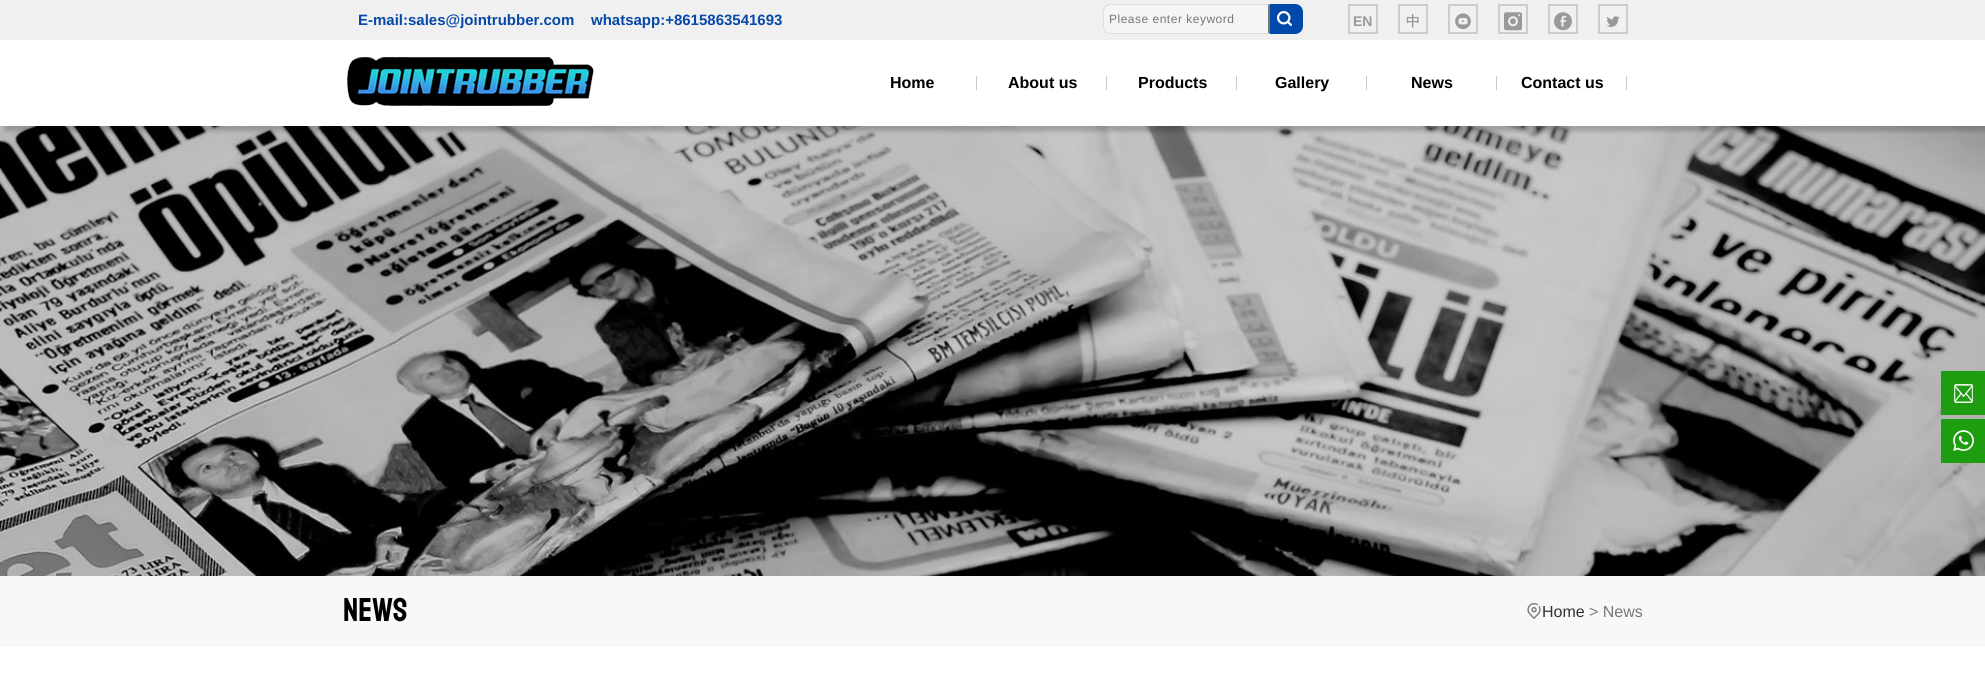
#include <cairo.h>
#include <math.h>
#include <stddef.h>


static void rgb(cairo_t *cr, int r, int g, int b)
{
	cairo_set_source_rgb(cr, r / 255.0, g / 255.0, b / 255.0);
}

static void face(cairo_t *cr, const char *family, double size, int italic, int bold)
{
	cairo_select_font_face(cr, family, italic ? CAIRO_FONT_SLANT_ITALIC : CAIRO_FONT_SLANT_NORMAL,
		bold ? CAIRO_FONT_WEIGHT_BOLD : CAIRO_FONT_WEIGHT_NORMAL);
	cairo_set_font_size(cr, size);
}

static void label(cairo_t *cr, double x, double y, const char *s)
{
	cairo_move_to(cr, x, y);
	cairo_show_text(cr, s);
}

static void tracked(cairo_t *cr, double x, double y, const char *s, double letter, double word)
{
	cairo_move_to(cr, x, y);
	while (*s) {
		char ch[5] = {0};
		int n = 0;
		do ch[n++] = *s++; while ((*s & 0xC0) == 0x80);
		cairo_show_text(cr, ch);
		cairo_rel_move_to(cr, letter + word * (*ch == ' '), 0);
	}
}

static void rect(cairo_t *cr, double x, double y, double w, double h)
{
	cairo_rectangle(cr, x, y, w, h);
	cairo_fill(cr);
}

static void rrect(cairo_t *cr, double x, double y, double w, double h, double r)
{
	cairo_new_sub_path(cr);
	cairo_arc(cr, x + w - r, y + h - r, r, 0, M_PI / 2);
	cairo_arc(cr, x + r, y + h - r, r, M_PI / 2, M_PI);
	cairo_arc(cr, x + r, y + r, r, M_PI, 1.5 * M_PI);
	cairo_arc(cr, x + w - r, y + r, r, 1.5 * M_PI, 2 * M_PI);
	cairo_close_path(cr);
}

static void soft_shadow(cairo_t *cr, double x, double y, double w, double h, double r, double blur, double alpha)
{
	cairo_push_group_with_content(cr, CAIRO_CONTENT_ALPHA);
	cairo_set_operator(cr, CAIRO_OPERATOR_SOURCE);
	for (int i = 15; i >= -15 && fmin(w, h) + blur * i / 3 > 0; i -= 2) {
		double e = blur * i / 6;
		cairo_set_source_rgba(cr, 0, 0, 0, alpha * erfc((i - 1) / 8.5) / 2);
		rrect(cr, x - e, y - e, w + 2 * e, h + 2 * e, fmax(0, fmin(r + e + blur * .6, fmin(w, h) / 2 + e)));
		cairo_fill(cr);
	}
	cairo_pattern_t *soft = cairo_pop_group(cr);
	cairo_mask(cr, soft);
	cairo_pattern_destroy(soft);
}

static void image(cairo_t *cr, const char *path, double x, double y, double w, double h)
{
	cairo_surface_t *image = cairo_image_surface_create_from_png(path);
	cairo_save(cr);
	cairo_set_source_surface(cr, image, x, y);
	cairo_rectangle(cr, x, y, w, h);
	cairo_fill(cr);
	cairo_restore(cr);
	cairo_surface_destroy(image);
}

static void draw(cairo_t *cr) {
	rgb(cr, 255, 255, 255);
	cairo_paint(cr);
	image(cr, "image6.png", 0, 126, 1985, 450);
	cairo_save(cr);
	cairo_rectangle(cr, 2, 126, 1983, 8);
	cairo_clip(cr);
	rgb(cr, 0, 0, 0);
	soft_shadow(cr, 5, 5, 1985, 126, 0, 2.5, 0.2);
	cairo_restore(cr);
	rgb(cr, 240, 240, 240);
	rect(cr, 0, 0, 1985, 40);
	face(cr, "Liberation Sans", 15, 0, 1);
	rgb(cr, 6, 72, 168);
	label(cr, 358, 25, "E-mail:sales@jointrubber.com");
	label(cr, 591, 25, "whatsapp:+8615863541693");
	rgb(cr, 245, 245, 245);
	cairo_new_path(cr);
	cairo_move_to(cr, 1111, 4);
	cairo_line_to(cr, 1270, 4);
	cairo_line_to(cr, 1270, 34);
	cairo_line_to(cr, 1111, 34);
	cairo_curve_to(cr, 1106.5, 34, 1103, 30.5, 1103, 26);
	cairo_line_to(cr, 1103, 12);
	cairo_curve_to(cr, 1103, 7.5, 1106.5, 4, 1111, 4);
	cairo_close_path(cr);
	cairo_fill(cr);
	rgb(cr, 221, 221, 221);
	cairo_new_path(cr);
	cairo_move_to(cr, 1111, 4);
	cairo_curve_to(cr, 1108, 4, 1106, 5, 1105, 6);
	cairo_line_to(cr, 1106, 7);
	cairo_curve_to(cr, 1107, 6, 1109, 5, 1111, 5);
	cairo_line_to(cr, 1268, 5);
	cairo_line_to(cr, 1270, 4);
	cairo_close_path(cr);
	cairo_fill(cr);
	rgb(cr, 118, 118, 118);
	cairo_new_path(cr);
	cairo_move_to(cr, 1270, 4);
	cairo_line_to(cr, 1268, 5);
	cairo_line_to(cr, 1268, 33);
	cairo_line_to(cr, 1270, 34);
	cairo_close_path(cr);
	cairo_fill(cr);
	rgb(cr, 221, 221, 221);
	cairo_new_path(cr);
	cairo_move_to(cr, 1270, 34);
	cairo_line_to(cr, 1268, 33);
	cairo_line_to(cr, 1111, 33);
	cairo_curve_to(cr, 1109, 33, 1107, 32, 1106, 31);
	cairo_line_to(cr, 1105, 32);
	cairo_line_to(cr, 1109, 34);
	cairo_close_path(cr);
	cairo_fill(cr);
	cairo_new_path(cr);
	cairo_move_to(cr, 1103, 13.5);
	cairo_curve_to(cr, 1103, 11, 1103.5, 8, 1105, 6);
	cairo_line_to(cr, 1106, 7);
	cairo_curve_to(cr, 1103, 10, 1104, 15, 1104, 19);
	cairo_curve_to(cr, 1104, 23, 1103, 28, 1106, 31);
	cairo_line_to(cr, 1105, 32);
	cairo_curve_to(cr, 1102, 28, 1103, 18.5, 1103, 13.5);
	cairo_close_path(cr);
	cairo_fill(cr);
	face(cr, "Liberation Sans", 12, 0, 0);
	rgb(cr, 119, 119, 119);
	tracked(cr, 1109, 23, "Please enter keyword", 0.5, 0);
	rgb(cr, 0, 73, 170);
	cairo_new_path(cr);
	cairo_move_to(cr, 1270, 4);
	cairo_line_to(cr, 1295, 4);
	cairo_curve_to(cr, 1299.5, 4, 1303, 7.5, 1303, 12);
	cairo_line_to(cr, 1303, 26);
	cairo_curve_to(cr, 1303, 30.5, 1299.5, 34, 1295, 34);
	cairo_line_to(cr, 1270, 34);
	cairo_close_path(cr);
	cairo_fill(cr);
	image(cr, "image0.png", 1277, 11, 15, 15);
	cairo_rectangle(cr, 1349, 5, 28, 28);
	rgb(cr, 204, 204, 204);
	cairo_stroke(cr);
	face(cr, "Liberation Sans", 14, 0, 1);
	rgb(cr, 153, 153, 153);
	label(cr, 1353, 26, "EN");
	cairo_rectangle(cr, 1399, 5, 28, 28);
	rgb(cr, 204, 204, 204);
	cairo_stroke(cr);
	face(cr, "WenQuanYi Zen Hei", 14, 0, 1);
	rgb(cr, 153, 153, 153);
	label(cr, 1406, 26, "中");
	cairo_rectangle(cr, 1449, 5, 28, 28);
	rgb(cr, 204, 204, 204);
	cairo_stroke(cr);
	image(cr, "image1.png", 1455, 13, 16, 17);
	cairo_rectangle(cr, 1499, 5, 28, 28);
	cairo_stroke(cr);
	image(cr, "image2.png", 1504, 12, 18, 19);
	cairo_rectangle(cr, 1549, 5, 28, 28);
	cairo_stroke(cr);
	image(cr, "image3.png", 1554, 12, 18, 19);
	cairo_rectangle(cr, 1599, 5, 28, 28);
	cairo_stroke(cr);
	image(cr, "image4.png", 1606, 16, 14, 11);
	image(cr, "image5.png", 347, 57, 247, 49);
	rgb(cr, 201, 201, 201);
	rect(cr, 976, 76, 1, 14);
	face(cr, "Liberation Sans", 16, 0, 1);
	rgb(cr, 0, 0, 0);
	label(cr, 890, 88, "Home");
	rgb(cr, 201, 201, 201);
	rect(cr, 1106, 76, 1, 14);
	rgb(cr, 0, 0, 0);
	label(cr, 1008, 88, "About us");
	rgb(cr, 201, 201, 201);
	rect(cr, 1236, 76, 1, 14);
	rgb(cr, 0, 0, 0);
	label(cr, 1138, 88, "Products");
	rgb(cr, 201, 201, 201);
	rect(cr, 1366, 76, 1, 14);
	rgb(cr, 0, 0, 0);
	label(cr, 1275, 88, "Gallery");
	rgb(cr, 201, 201, 201);
	rect(cr, 1496, 76, 1, 14);
	rgb(cr, 0, 0, 0);
	label(cr, 1411, 88, "News");
	rgb(cr, 201, 201, 201);
	rect(cr, 1626, 76, 1, 14);
	rgb(cr, 0, 0, 0);
	label(cr, 1521, 88, "Contact us");
	rgb(cr, 29, 157, 15);
	rect(cr, 1941, 371, 44, 44);
	image(cr, "image7.png", 1954, 384, 19, 19);
	rect(cr, 1941, 419, 44, 44);
	image(cr, "image8.png", 1953, 430, 21, 21);
	rgb(cr, 248, 248, 248);
	rect(cr, 0, 576, 1985, 71);
	face(cr, "Staatliches", 33, 0, 0);
	rgb(cr, 0, 0, 0);
	label(cr, 343, 621, "News");
	image(cr, "image9.png", 1527, 603, 14, 16);
	face(cr, "Liberation Sans", 16, 0, 0);
	rgb(cr, 51, 51, 51);
	label(cr, 1542, 617, "Home");
	rgb(cr, 119, 119, 119);
	label(cr, 1589, 617, "> News");
}

int main(void) {
	cairo_surface_t *surface = cairo_image_surface_create(CAIRO_FORMAT_RGB24, 1985, 696);
	cairo_t *cr = cairo_create(surface);
	cairo_font_options_t *options = cairo_font_options_create();
	cairo_font_options_set_hint_metrics(options, CAIRO_HINT_METRICS_OFF);
	cairo_font_options_set_hint_style(options, CAIRO_HINT_STYLE_NONE);
	cairo_set_font_options(cr, options);
	cairo_set_miter_limit(cr, 4);
	draw(cr);
	cairo_surface_write_to_png(surface, "render.png");
	cairo_font_options_destroy(options);
	cairo_destroy(cr);
	cairo_surface_destroy(surface);
	return 0;
}
